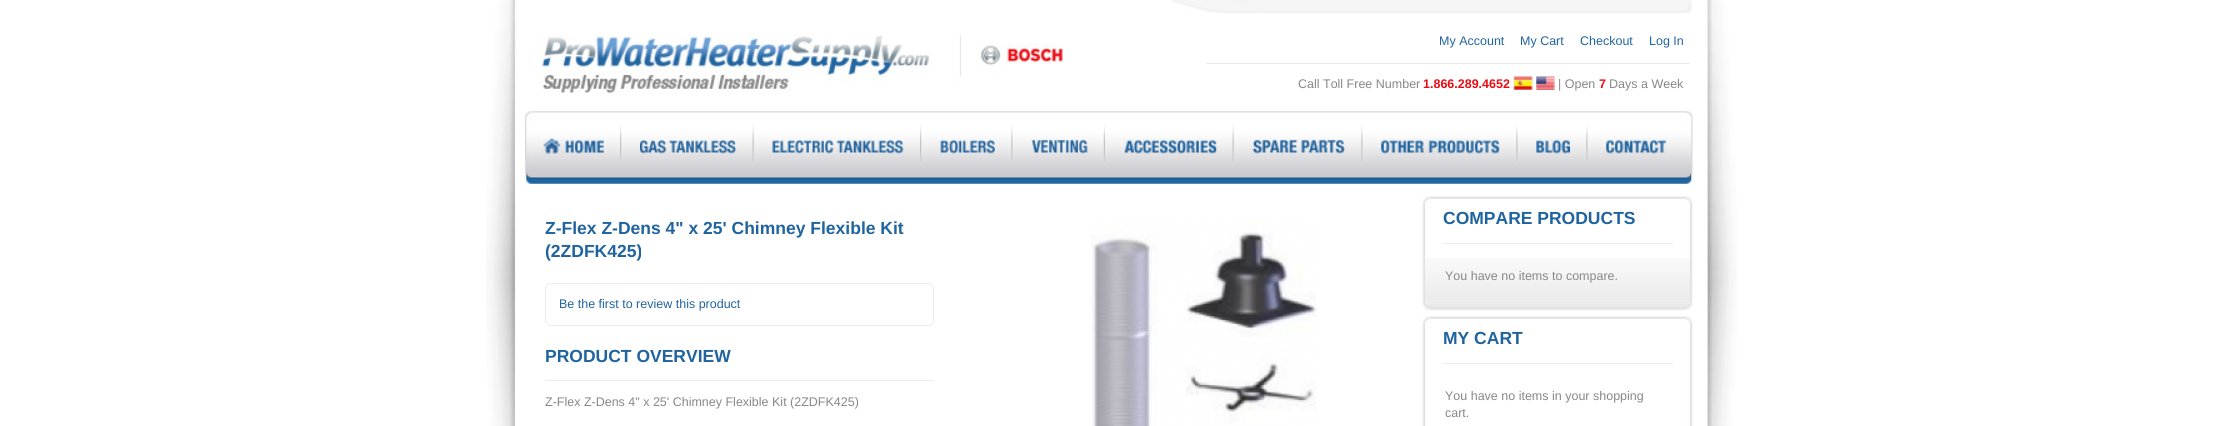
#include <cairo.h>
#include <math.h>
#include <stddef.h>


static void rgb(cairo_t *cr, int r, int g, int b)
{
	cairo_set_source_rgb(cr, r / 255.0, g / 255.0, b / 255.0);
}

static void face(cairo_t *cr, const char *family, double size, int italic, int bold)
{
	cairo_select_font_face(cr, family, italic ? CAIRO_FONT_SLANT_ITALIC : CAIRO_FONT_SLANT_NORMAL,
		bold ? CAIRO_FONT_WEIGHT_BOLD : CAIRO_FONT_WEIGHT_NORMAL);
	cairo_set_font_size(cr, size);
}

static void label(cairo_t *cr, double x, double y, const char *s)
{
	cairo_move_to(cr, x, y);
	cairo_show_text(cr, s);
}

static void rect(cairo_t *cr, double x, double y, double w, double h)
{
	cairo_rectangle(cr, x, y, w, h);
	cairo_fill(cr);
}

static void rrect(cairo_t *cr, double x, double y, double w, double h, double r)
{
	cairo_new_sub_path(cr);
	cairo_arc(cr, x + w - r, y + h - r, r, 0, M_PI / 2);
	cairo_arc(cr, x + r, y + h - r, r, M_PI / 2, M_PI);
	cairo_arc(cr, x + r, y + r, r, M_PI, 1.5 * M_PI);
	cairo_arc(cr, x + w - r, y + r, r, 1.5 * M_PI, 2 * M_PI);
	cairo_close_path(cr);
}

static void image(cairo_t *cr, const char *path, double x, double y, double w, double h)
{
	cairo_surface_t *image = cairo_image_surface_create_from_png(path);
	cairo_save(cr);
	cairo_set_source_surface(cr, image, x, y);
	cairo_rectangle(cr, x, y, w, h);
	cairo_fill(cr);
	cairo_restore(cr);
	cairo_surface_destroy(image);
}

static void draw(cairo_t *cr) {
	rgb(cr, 255, 255, 255);
	cairo_paint(cr);
	image(cr, "image0.png", 486, 0, 1251, 426);
	image(cr, "image1.png", 510, 0, 1202, 426);
	image(cr, "image2.png", 1170, 0, 522, 14);
	image(cr, "image3.png", 542, 34, 420, 59);
	image(cr, "image4.png", 961, 36, 102, 39);
	rgb(cr, 235, 235, 235);
	rect(cr, 1206, 63, 484, 1);
	face(cr, "Liberation Sans", 12.5, 0, 0);
	rgb(cr, 32, 100, 159);
	label(cr, 1439, 45, "My Account");
	label(cr, 1520, 45, "My Cart");
	label(cr, 1580, 45, "Checkout");
	label(cr, 1649, 45, "Log In");
	rgb(cr, 135, 135, 135);
	label(cr, 1298, 88, "Call Toll Free Number");
	face(cr, "Liberation Sans", 12.5, 0, 1);
	rgb(cr, 235, 11, 20);
	label(cr, 1423, 88, "1.866.289.4652");
	image(cr, "image5.png", 1513, 76, 20, 14);
	image(cr, "image6.png", 1536, 76, 19, 14);
	face(cr, "Liberation Sans", 12.5, 0, 0);
	rgb(cr, 135, 135, 135);
	label(cr, 1558, 88, "| Open");
	face(cr, "Liberation Sans", 12.5, 0, 1);
	rgb(cr, 235, 11, 20);
	label(cr, 1599, 88, "7");
	face(cr, "Liberation Sans", 12.5, 0, 0);
	rgb(cr, 135, 135, 135);
	label(cr, 1609, 88, "Days a Week");
	image(cr, "image7.png", 525, 111, 1168, 73);
	image(cr, "image8.png", 620, 124, 2, 37);
	image(cr, "image9.png", 543, 138, 61, 16);
	image(cr, "image10.png", 752, 124, 2, 37);
	image(cr, "image11.png", 640, 139, 97, 15);
	image(cr, "image8.png", 920, 124, 2, 37);
	image(cr, "image12.png", 772, 139, 132, 15);
	image(cr, "image13.png", 1011, 124, 2, 37);
	image(cr, "image14.png", 940, 139, 55, 15);
	image(cr, "image15.png", 1103, 124, 2, 37);
	image(cr, "image16.png", 1031, 139, 57, 15);
	image(cr, "image10.png", 1232, 124, 2, 37);
	image(cr, "image17.png", 1123, 139, 94, 15);
	image(cr, "image13.png", 1361, 124, 2, 37);
	image(cr, "image18.png", 1252, 139, 93, 15);
	image(cr, "image13.png", 1516, 124, 2, 37);
	image(cr, "image19.png", 1381, 139, 119, 15);
	image(cr, "image13.png", 1586, 124, 2, 37);
	image(cr, "image20.png", 1536, 139, 34, 15);
	image(cr, "image21.png", 1606, 139, 61, 15);
	face(cr, "Liberation Sans", 17.5, 0, 1);
	rgb(cr, 32, 100, 159);
	label(cr, 545, 234, "Z-Flex Z-Dens 4\" x 25' Chimney Flexible Kit");
	label(cr, 545, 257, "(2ZDFK425)");
	rrect(cr, 545.5, 283.5, 388, 42, 5.5);
	rgb(cr, 235, 235, 235);
	cairo_set_line_width(cr, 1);
	cairo_stroke(cr);
	face(cr, "Liberation Sans", 12.5, 0, 0);
	rgb(cr, 32, 100, 159);
	label(cr, 559, 308, "Be the first to review this product");
	rgb(cr, 235, 235, 235);
	rect(cr, 545, 380, 389, 1);
	face(cr, "Liberation Sans", 17.5, 0, 1);
	rgb(cr, 32, 100, 159);
	label(cr, 545, 362, "PRODUCT OVERVIEW");
	face(cr, "Liberation Sans", 12.5, 0, 0);
	rgb(cr, 135, 135, 135);
	label(cr, 545, 406, "Z-Flex Z-Dens 4\" x 25' Chimney Flexible Kit (2ZDFK425)");
	image(cr, "image22.png", 1090, 220, 227, 206);
	image(cr, "image23.png", 1422, 196, 271, 7);
	image(cr, "image24.png", 1422, 202, 271, 102);
	rgb(cr, 235, 235, 235);
	rect(cr, 1443, 243, 230, 1);
	face(cr, "Liberation Sans", 17.5, 0, 1);
	rgb(cr, 32, 100, 159);
	label(cr, 1443, 224, "COMPARE PRODUCTS");
	image(cr, "image25.png", 1425, 258, 265, 46);
	face(cr, "Liberation Sans", 12.5, 0, 0);
	rgb(cr, 135, 135, 135);
	label(cr, 1445, 280, "You have no items to compare.");
	image(cr, "image26.png", 1422, 304, 271, 7);
	image(cr, "image23.png", 1422, 316, 271, 7);
	image(cr, "image27.png", 1422, 322, 271, 104);
	rgb(cr, 235, 235, 235);
	rect(cr, 1443, 363, 230, 1);
	face(cr, "Liberation Sans", 17.5, 0, 1);
	rgb(cr, 32, 100, 159);
	label(cr, 1443, 344, "MY CART");
	face(cr, "Liberation Sans", 12.5, 0, 0);
	rgb(cr, 135, 135, 135);
	label(cr, 1445, 400, "You have no items in your shopping");
	label(cr, 1445, 417, "cart.");
}

int main(void) {
	cairo_surface_t *surface = cairo_image_surface_create(CAIRO_FORMAT_RGB24, 2221, 426);
	cairo_t *cr = cairo_create(surface);
	cairo_font_options_t *options = cairo_font_options_create();
	cairo_font_options_set_hint_metrics(options, CAIRO_HINT_METRICS_OFF);
	cairo_font_options_set_hint_style(options, CAIRO_HINT_STYLE_NONE);
	cairo_set_font_options(cr, options);
	cairo_set_miter_limit(cr, 4);
	draw(cr);
	cairo_surface_write_to_png(surface, "render.png");
	cairo_font_options_destroy(options);
	cairo_destroy(cr);
	cairo_surface_destroy(surface);
	return 0;
}
